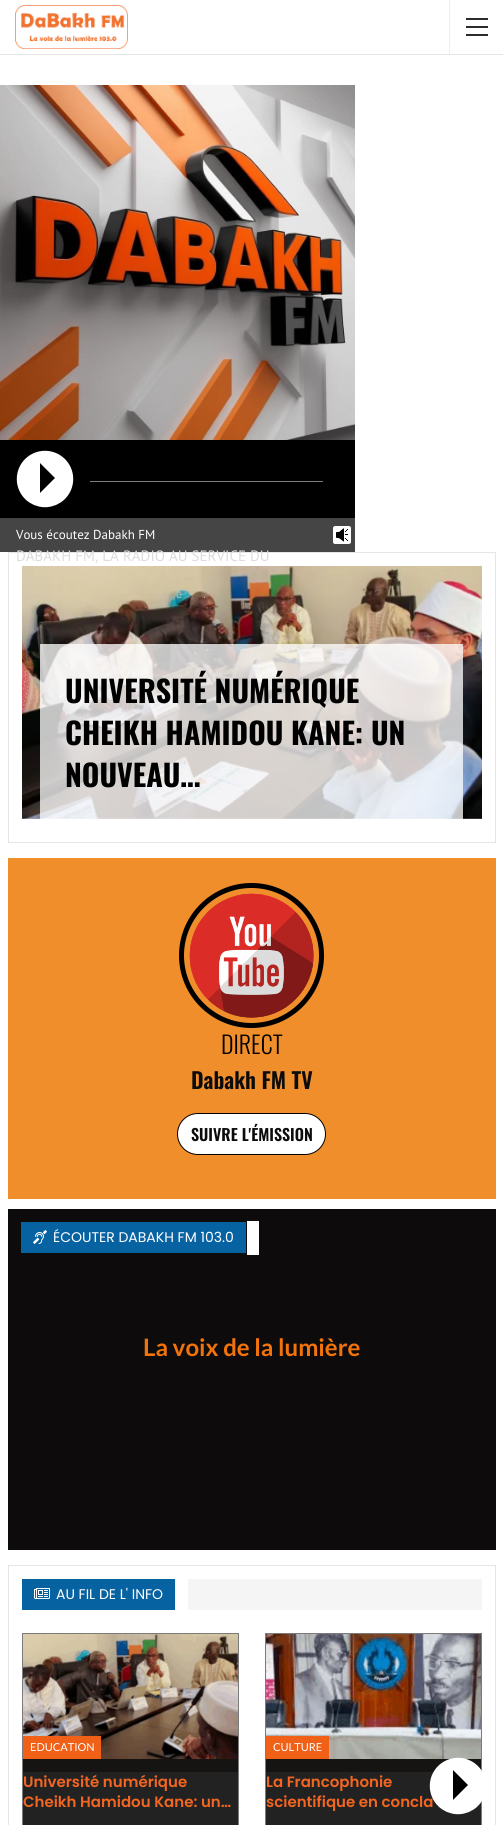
#include <cairo.h>
#include <math.h>
#include <stddef.h>


static void rgb(cairo_t *cr, int r, int g, int b)
{
	cairo_set_source_rgb(cr, r / 255.0, g / 255.0, b / 255.0);
}

static void face(cairo_t *cr, const char *family, double size, int italic, int bold)
{
	cairo_select_font_face(cr, family, italic ? CAIRO_FONT_SLANT_ITALIC : CAIRO_FONT_SLANT_NORMAL,
		bold ? CAIRO_FONT_WEIGHT_BOLD : CAIRO_FONT_WEIGHT_NORMAL);
	cairo_set_font_size(cr, size);
}

static void label(cairo_t *cr, double x, double y, const char *s)
{
	cairo_move_to(cr, x, y);
	cairo_show_text(cr, s);
}

static void rect(cairo_t *cr, double x, double y, double w, double h)
{
	cairo_rectangle(cr, x, y, w, h);
	cairo_fill(cr);
}

static void rrect(cairo_t *cr, double x, double y, double w, double h, double r)
{
	cairo_new_sub_path(cr);
	cairo_arc(cr, x + w - r, y + h - r, r, 0, M_PI / 2);
	cairo_arc(cr, x + r, y + h - r, r, M_PI / 2, M_PI);
	cairo_arc(cr, x + r, y + r, r, M_PI, 1.5 * M_PI);
	cairo_arc(cr, x + w - r, y + r, r, 1.5 * M_PI, 2 * M_PI);
	cairo_close_path(cr);
}

static void image(cairo_t *cr, const char *path, double x, double y, double w, double h)
{
	cairo_surface_t *image = cairo_image_surface_create_from_png(path);
	cairo_save(cr);
	cairo_set_source_surface(cr, image, x, y);
	cairo_rectangle(cr, x, y, w, h);
	cairo_fill(cr);
	cairo_restore(cr);
	cairo_surface_destroy(image);
}

static void draw(cairo_t *cr) {
	rgb(cr, 255, 255, 255);
	cairo_paint(cr);
	rgb(cr, 229, 229, 229);
	rect(cr, 0, 54, 503, 1);
	image(cr, "image0.png", 15, 5, 113, 44);
	rgb(cr, 237, 237, 237);
	rect(cr, 449, 0, 1, 54);
	rgb(cr, 44, 44, 44);
	rect(cr, 466, 26, 22, 2);
	rect(cr, 466, 18, 22, 2);
	rect(cr, 466, 34, 22, 2);
	image(cr, "image1.png", 0, 85, 355, 355);
	rgb(cr, 0, 0, 0);
	rect(cr, 0, 440, 355, 78);
	image(cr, "image2.png", 16, 450, 58, 58);
	rgb(cr, 69, 69, 69);
	rect(cr, 0, 518, 355, 34);
	image(cr, "image3.png", 333, 526, 18, 18);
	rgb(cr, 125, 125, 125);
	rect(cr, 90, 481, 233, 1);
	face(cr, "PT Sans", 13, 0, 0);
	rgb(cr, 255, 255, 255);
	label(cr, 16, 539, "Vous écoutez Dabakh FM");
	cairo_rectangle(cr, 8.5, 552.5, 487, 290);
	rgb(cr, 230, 230, 230);
	cairo_set_line_width(cr, 1);
	cairo_stroke(cr);
	face(cr, "PT Sans", 15, 0, 0);
	rgb(cr, 220, 220, 220);
	label(cr, 16, 561, "DABAKH FM, LA RADIO AU SERVICE DU");
	image(cr, "image4.png", 22, 566, 460, 253);
	face(cr, "Liberation Sans", 11, 0, 0);
	rgb(cr, 197, 188, 161);
	label(cr, 176, 598, "e");
	label(cr, 203, 598, ".");
	cairo_set_source_rgba(cr, 1, 1, 1, 0.76);
	rect(cr, 40, 644, 423, 175);
	face(cr, "Oswald", 30, 0, 1);
	rgb(cr, 0, 0, 0);
	label(cr, 65, 703, "UNIVERSITÉ NUMÉRIQUE");
	label(cr, 65, 745, "CHEIKH HAMIDOU KANE: UN");
	label(cr, 65, 787, "NOUVEAU…");
	rgb(cr, 241, 142, 44);
	rect(cr, 8, 858, 488, 341);
	image(cr, "image5.png", 189, 893, 125, 125);
	cairo_arc(cr, 251.5, 955.5, 70, 0, 2 * M_PI);
	rgb(cr, 0, 0, 0);
	cairo_set_line_width(cr, 5);
	cairo_stroke(cr);
	face(cr, "Oswald Light", 24, 0, 0);
	label(cr, 221, 1054, "DIRECT");
	face(cr, "Oswald SemiBold", 22, 0, 0);
	rgb(cr, 12, 12, 12);
	label(cr, 191, 1089, "Dabakh FM TV");
	rgb(cr, 255, 255, 255);
	rrect(cr, 177.5, 1113.5, 148, 41, 20.5);
	cairo_fill_preserve(cr);
	rgb(cr, 0, 0, 0);
	cairo_set_line_width(cr, 1);
	cairo_stroke(cr);
	face(cr, "Oswald SemiBold", 16, 0, 0);
	rgb(cr, 12, 12, 12);
	label(cr, 191, 1141, "SUIVRE L'ÉMISSION");
	rgb(cr, 13, 11, 11);
	rect(cr, 8, 1209, 488, 341);
	rgb(cr, 7, 98, 162);
	rect(cr, 21, 1222, 225, 31);
	image(cr, "image6.png", 33, 1230, 14, 14);
	face(cr, "Poppins", 14, 0, 0);
	rgb(cr, 255, 255, 255);
	label(cr, 53, 1242, "ÉCOUTER DABAKH FM 103.0");
	rect(cr, 247, 1221, 12, 34);
	face(cr, "Lato", 24, 0, 1);
	rgb(cr, 243, 115, 11);
	label(cr, 143, 1356, "La voix de la lumière");
	cairo_rectangle(cr, 8.5, 1565.5, 487, 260);
	rgb(cr, 230, 230, 230);
	cairo_stroke(cr);
	rgb(cr, 7, 98, 162);
	rect(cr, 22, 1579, 153, 31);
	image(cr, "image7.png", 34, 1588, 16, 11);
	face(cr, "Poppins", 14, 0, 0);
	rgb(cr, 255, 255, 255);
	label(cr, 56, 1599, "AU FIL DE L' INFO");
	rgb(cr, 245, 245, 245);
	rect(cr, 175, 1579, 307, 31);
	rgb(cr, 255, 255, 255);
	rect(cr, 176, 1579, 12, 31);
	rgb(cr, 22, 20, 18);
	rect(cr, 23, 1759, 215, 13);
	cairo_rectangle(cr, 22.5, 1633.5, 216, 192);
	rgb(cr, 123, 123, 123);
	cairo_stroke(cr);
	image(cr, "image8.png", 23, 1634, 215, 125);
	rgb(cr, 241, 96, 23);
	rect(cr, 23, 1736, 78, 23);
	face(cr, "Lato", 11, 0, 0);
	rgb(cr, 255, 255, 255);
	label(cr, 30, 1751, "EDUCATION");
	rgb(cr, 34, 34, 34);
	rect(cr, 23, 1772, 215, 53);
	face(cr, "Poppins SemiBold", 15, 0, 0);
	rgb(cr, 242, 102, 33);
	label(cr, 23, 1787, "Université numérique");
	label(cr, 23, 1807, "Cheikh Hamidou Kane: un…");
	rgb(cr, 22, 20, 18);
	rect(cr, 266, 1759, 215, 13);
	cairo_rectangle(cr, 265.5, 1633.5, 216, 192);
	rgb(cr, 123, 123, 123);
	cairo_stroke(cr);
	image(cr, "image9.png", 266, 1634, 215, 125);
	rgb(cr, 241, 96, 23);
	rect(cr, 266, 1736, 63, 23);
	face(cr, "Lato", 11, 0, 0);
	rgb(cr, 255, 255, 255);
	label(cr, 273, 1751, "CULTURE");
	rgb(cr, 34, 34, 34);
	rect(cr, 266, 1772, 215, 53);
	face(cr, "Poppins SemiBold", 15, 0, 0);
	rgb(cr, 242, 102, 33);
	label(cr, 266, 1787, "La Francophonie");
	label(cr, 266, 1807, "scientifique en concla");
	image(cr, "image10.png", 429, 1757, 53, 58);
}

int main(void) {
	cairo_surface_t *surface = cairo_image_surface_create(CAIRO_FORMAT_RGB24, 503, 1825);
	cairo_t *cr = cairo_create(surface);
	cairo_font_options_t *options = cairo_font_options_create();
	cairo_font_options_set_hint_metrics(options, CAIRO_HINT_METRICS_OFF);
	cairo_font_options_set_hint_style(options, CAIRO_HINT_STYLE_NONE);
	cairo_set_font_options(cr, options);
	cairo_set_miter_limit(cr, 4);
	draw(cr);
	cairo_surface_write_to_png(surface, "render.png");
	cairo_font_options_destroy(options);
	cairo_destroy(cr);
	cairo_surface_destroy(surface);
	return 0;
}
